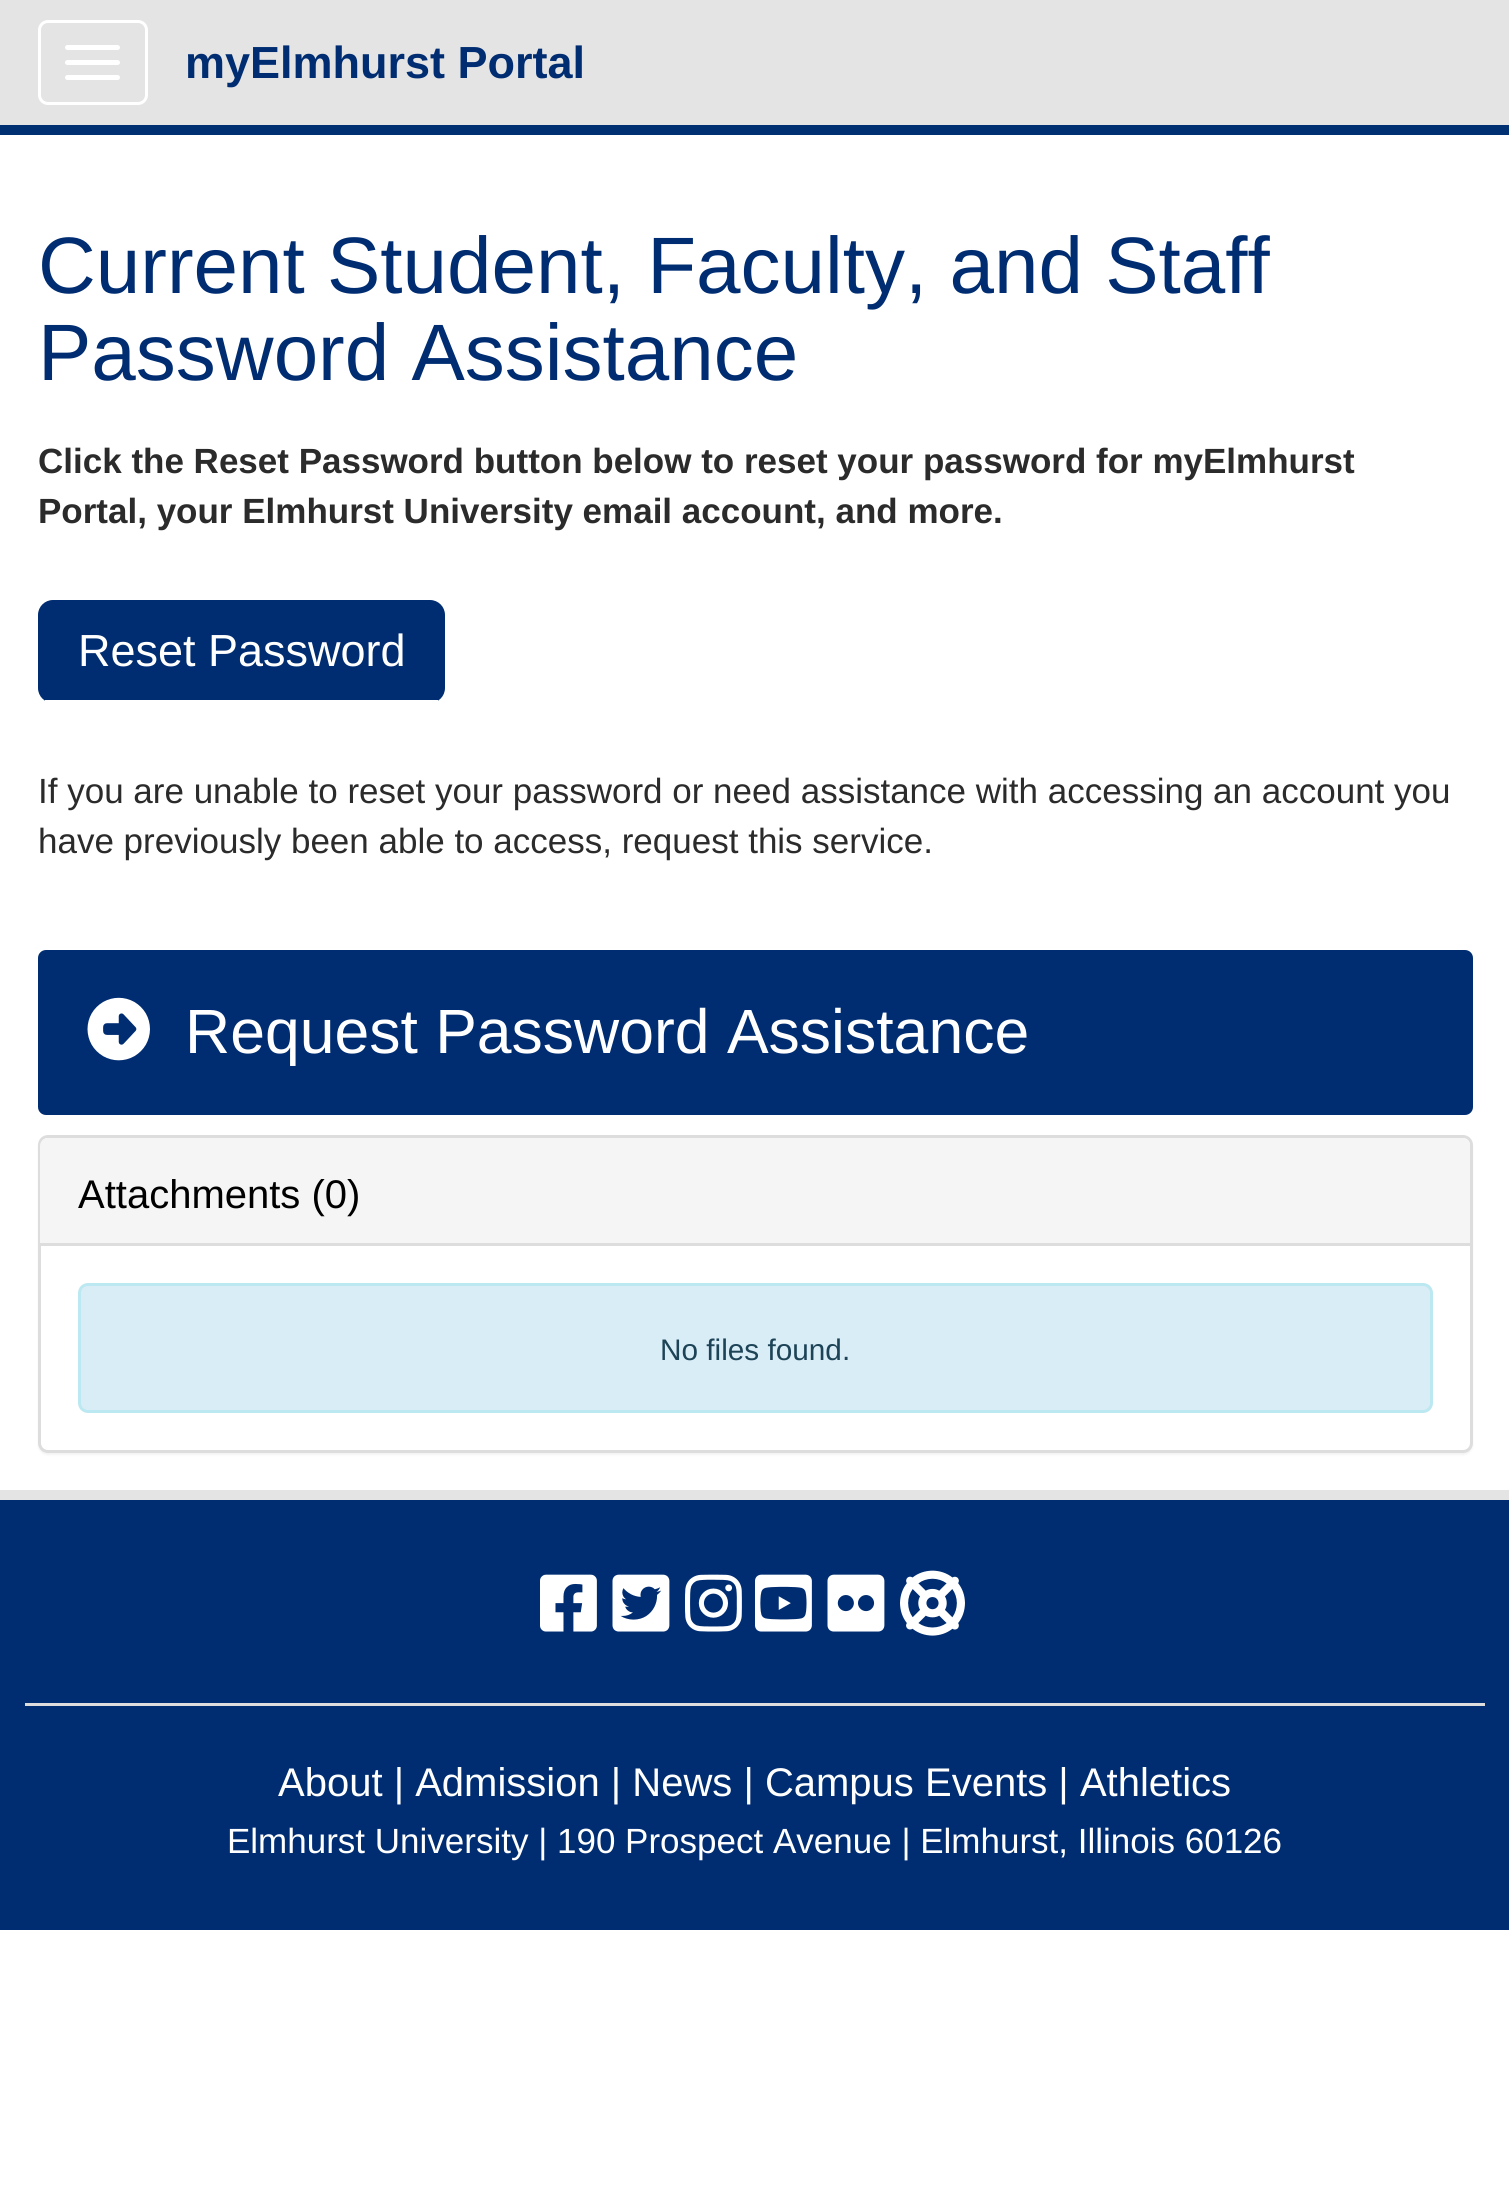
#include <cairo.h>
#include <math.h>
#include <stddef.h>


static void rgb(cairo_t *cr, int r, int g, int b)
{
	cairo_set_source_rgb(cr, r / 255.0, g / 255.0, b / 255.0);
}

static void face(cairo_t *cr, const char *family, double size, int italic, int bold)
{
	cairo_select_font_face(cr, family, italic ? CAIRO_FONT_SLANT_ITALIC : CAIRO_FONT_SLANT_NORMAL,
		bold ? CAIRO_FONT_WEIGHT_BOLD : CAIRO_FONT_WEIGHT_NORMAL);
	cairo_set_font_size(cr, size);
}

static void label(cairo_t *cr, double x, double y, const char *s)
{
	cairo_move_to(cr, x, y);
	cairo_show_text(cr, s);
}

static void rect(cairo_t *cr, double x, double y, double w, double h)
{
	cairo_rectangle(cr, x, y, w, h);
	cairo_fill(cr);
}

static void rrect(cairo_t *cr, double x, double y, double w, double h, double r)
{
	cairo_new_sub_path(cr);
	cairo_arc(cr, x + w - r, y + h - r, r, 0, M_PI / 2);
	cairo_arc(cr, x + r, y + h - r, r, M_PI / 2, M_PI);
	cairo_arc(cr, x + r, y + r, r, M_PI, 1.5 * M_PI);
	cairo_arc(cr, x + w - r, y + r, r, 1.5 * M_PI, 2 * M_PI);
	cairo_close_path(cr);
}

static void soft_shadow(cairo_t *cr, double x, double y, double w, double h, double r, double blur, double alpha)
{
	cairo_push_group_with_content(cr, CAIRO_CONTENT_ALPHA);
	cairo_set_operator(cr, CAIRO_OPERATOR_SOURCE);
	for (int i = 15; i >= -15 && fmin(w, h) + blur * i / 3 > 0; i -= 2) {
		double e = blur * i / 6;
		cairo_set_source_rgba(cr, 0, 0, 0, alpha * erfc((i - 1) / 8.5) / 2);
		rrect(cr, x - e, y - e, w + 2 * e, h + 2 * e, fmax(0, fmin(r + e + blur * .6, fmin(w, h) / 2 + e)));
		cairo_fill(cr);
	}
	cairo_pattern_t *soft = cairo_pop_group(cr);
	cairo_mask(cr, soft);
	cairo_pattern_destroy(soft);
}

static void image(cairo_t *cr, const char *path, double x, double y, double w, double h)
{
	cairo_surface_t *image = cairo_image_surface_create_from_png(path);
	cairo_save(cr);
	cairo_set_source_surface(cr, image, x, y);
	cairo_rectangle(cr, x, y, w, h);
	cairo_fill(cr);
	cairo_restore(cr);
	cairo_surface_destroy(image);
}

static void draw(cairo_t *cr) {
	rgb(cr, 255, 255, 255);
	cairo_paint(cr);
	rgb(cr, 228, 228, 228);
	rect(cr, 0, 0, 1509, 125);
	rgb(cr, 0, 47, 114);
	rect(cr, 0, 125, 1509, 10);
	rrect(cr, 39.5, 21.5, 107, 82, 8.5);
	rgb(cr, 255, 255, 255);
	cairo_set_line_width(cr, 3);
	cairo_stroke(cr);
	rrect(cr, 65, 45, 55, 5, 2.5);
	cairo_fill(cr);
	rrect(cr, 65, 60, 55, 5, 2.5);
	cairo_fill(cr);
	rrect(cr, 65, 75, 55, 5, 2.5);
	cairo_fill(cr);
	face(cr, "Liberation Sans", 45, 0, 1);
	rgb(cr, 0, 45, 114);
	label(cr, 185, 78, "myElmhurst Portal");
	face(cr, "Liberation Sans", 80, 0, 0);
	label(cr, 38, 293, "Current Student, Faculty, and Staff");
	label(cr, 38, 380, "Password Assistance");
	face(cr, "Liberation Sans", 35, 0, 1);
	rgb(cr, 43, 43, 43);
	label(cr, 38, 473, "Click the Reset Password button below to reset your password for myElmhurst");
	label(cr, 38, 523, "Portal, your Elmhurst University email account, and more.");
	rgb(cr, 0, 45, 114);
	rrect(cr, 38, 600, 407, 103, 15);
	cairo_fill(cr);
	face(cr, "Liberation Sans", 45, 0, 0);
	rgb(cr, 255, 255, 255);
	label(cr, 78, 666, "Reset Password");
	rect(cr, 45, 700, 393, 3);
	face(cr, "Liberation Sans", 35, 0, 0);
	rgb(cr, 43, 43, 43);
	label(cr, 38, 803, "If you are unable to reset your password or need assistance with accessing an account you");
	label(cr, 38, 853, "have previously been able to access, request this service.");
	rgb(cr, 0, 45, 114);
	rrect(cr, 38, 950, 1435, 165, 8);
	cairo_fill(cr);
	image(cr, "image0.png", 87, 997, 63, 64);
	face(cr, "Liberation Sans", 62.5, 0, 0);
	rgb(cr, 255, 255, 255);
	label(cr, 185, 1053, "Request Password Assistance");
	rgb(cr, 0, 0, 0);
	soft_shadow(cr, 38, 1138, 1435, 317, 10, 1, 0.05);
	rgb(cr, 255, 255, 255);
	rrect(cr, 39.5, 1136.5, 1432, 315, 8.5);
	cairo_fill_preserve(cr);
	rgb(cr, 221, 221, 221);
	cairo_stroke(cr);
	rgb(cr, 245, 245, 245);
	cairo_new_path(cr);
	cairo_move_to(cr, 48, 1138);
	cairo_line_to(cr, 1462, 1138);
	cairo_curve_to(cr, 1466.5, 1138, 1470, 1141.5, 1470, 1146);
	cairo_line_to(cr, 1470, 1245);
	cairo_line_to(cr, 40, 1245);
	cairo_line_to(cr, 40, 1146);
	cairo_curve_to(cr, 40, 1141.5, 43.5, 1138, 48, 1138);
	cairo_close_path(cr);
	cairo_fill(cr);
	rgb(cr, 221, 221, 221);
	rect(cr, 40, 1243, 1430, 3);
	face(cr, "Liberation Sans", 40, 0, 0);
	rgb(cr, 0, 0, 0);
	label(cr, 78, 1208, "Attachments (0)");
	rgb(cr, 217, 237, 247);
	rrect(cr, 79.5, 1284.5, 1352, 127, 8.5);
	cairo_fill_preserve(cr);
	rgb(cr, 188, 232, 241);
	cairo_stroke(cr);
	face(cr, "Liberation Sans", 29.75, 0, 0);
	rgb(cr, 29, 67, 86);
	label(cr, 660, 1360, "No files found.");
	rgb(cr, 0, 45, 114);
	rect(cr, 0, 1500, 1509, 430);
	rgb(cr, 228, 228, 228);
	rect(cr, 0, 1490, 1509, 10);
	image(cr, "image1.png", 540, 1574, 57, 58);
	image(cr, "image2.png", 612, 1574, 58, 58);
	image(cr, "image3.png", 685, 1574, 57, 58);
	image(cr, "image4.png", 755, 1574, 57, 58);
	image(cr, "image5.png", 827, 1574, 58, 58);
	image(cr, "image6.png", 900, 1570, 65, 66);
	rgb(cr, 221, 221, 221);
	rect(cr, 25, 1703, 1460, 3);
	face(cr, "Liberation Sans", 40, 0, 0);
	rgb(cr, 255, 255, 255);
	label(cr, 278, 1796, "About | Admission | News | Campus Events | Athletics");
	face(cr, "Liberation Sans", 35, 0, 0);
	label(cr, 227, 1853, "Elmhurst University | 190 Prospect Avenue | Elmhurst, Illinois 60126");
}

int main(void) {
	cairo_surface_t *surface = cairo_image_surface_create(CAIRO_FORMAT_RGB24, 1509, 2197);
	cairo_t *cr = cairo_create(surface);
	cairo_font_options_t *options = cairo_font_options_create();
	cairo_font_options_set_hint_metrics(options, CAIRO_HINT_METRICS_OFF);
	cairo_font_options_set_hint_style(options, CAIRO_HINT_STYLE_NONE);
	cairo_set_font_options(cr, options);
	cairo_set_miter_limit(cr, 4);
	draw(cr);
	cairo_surface_write_to_png(surface, "render.png");
	cairo_font_options_destroy(options);
	cairo_destroy(cr);
	cairo_surface_destroy(surface);
	return 0;
}
